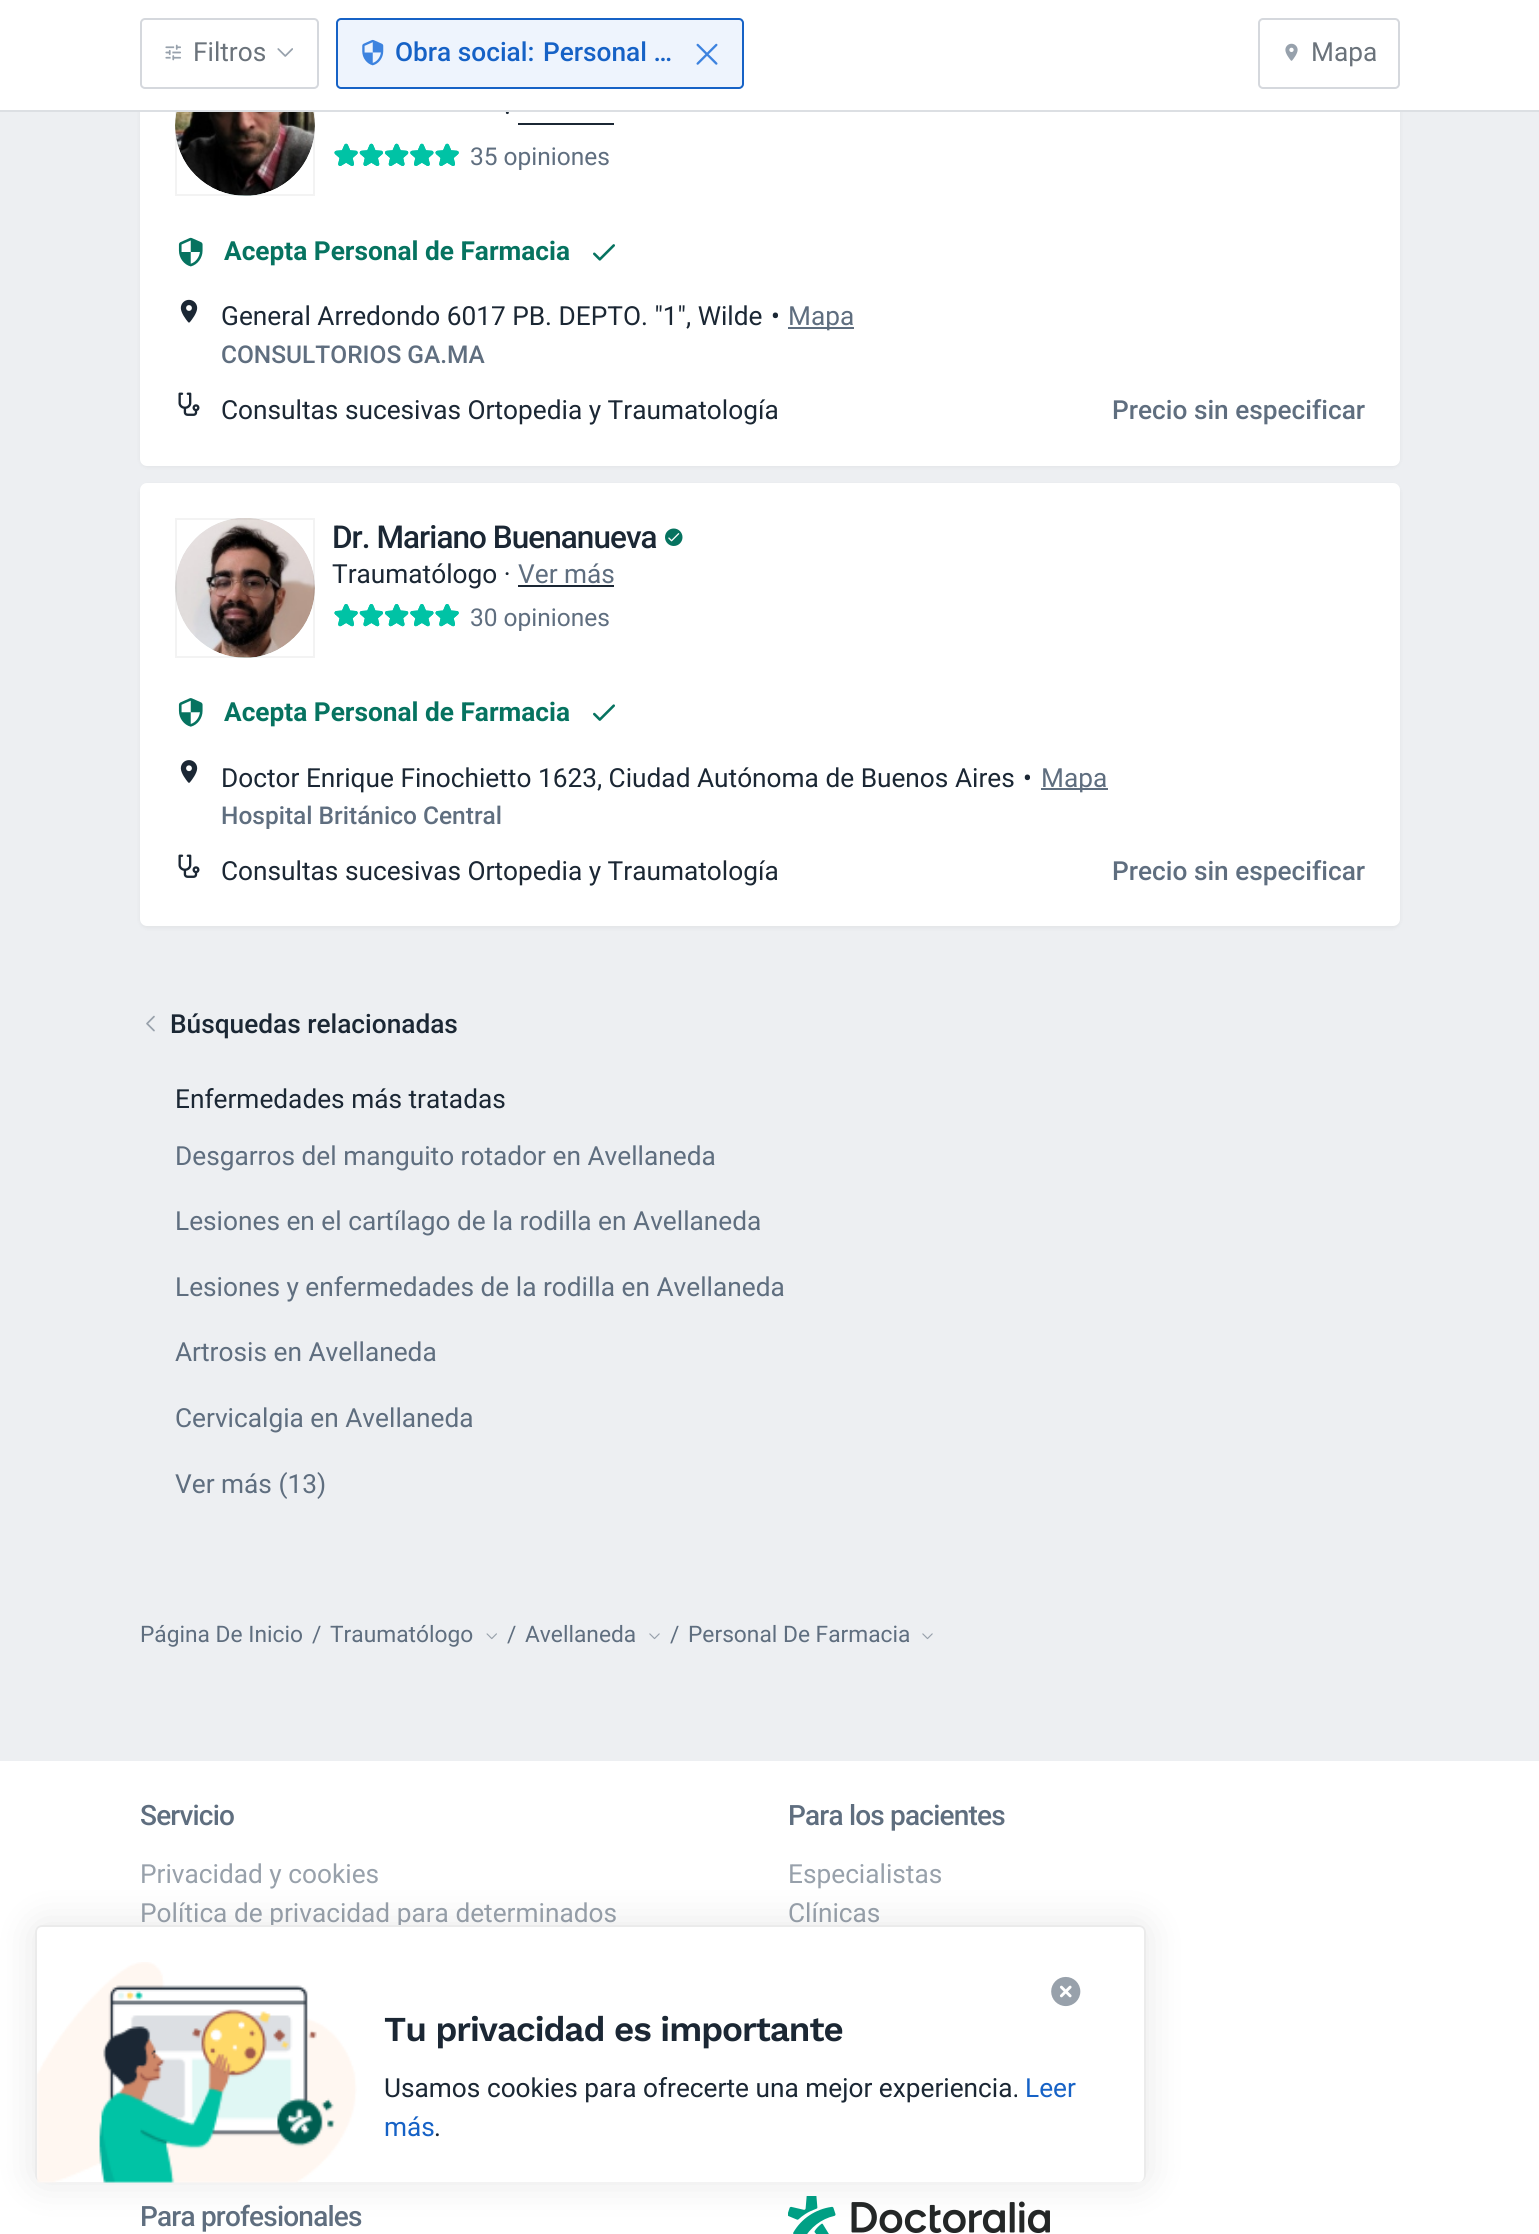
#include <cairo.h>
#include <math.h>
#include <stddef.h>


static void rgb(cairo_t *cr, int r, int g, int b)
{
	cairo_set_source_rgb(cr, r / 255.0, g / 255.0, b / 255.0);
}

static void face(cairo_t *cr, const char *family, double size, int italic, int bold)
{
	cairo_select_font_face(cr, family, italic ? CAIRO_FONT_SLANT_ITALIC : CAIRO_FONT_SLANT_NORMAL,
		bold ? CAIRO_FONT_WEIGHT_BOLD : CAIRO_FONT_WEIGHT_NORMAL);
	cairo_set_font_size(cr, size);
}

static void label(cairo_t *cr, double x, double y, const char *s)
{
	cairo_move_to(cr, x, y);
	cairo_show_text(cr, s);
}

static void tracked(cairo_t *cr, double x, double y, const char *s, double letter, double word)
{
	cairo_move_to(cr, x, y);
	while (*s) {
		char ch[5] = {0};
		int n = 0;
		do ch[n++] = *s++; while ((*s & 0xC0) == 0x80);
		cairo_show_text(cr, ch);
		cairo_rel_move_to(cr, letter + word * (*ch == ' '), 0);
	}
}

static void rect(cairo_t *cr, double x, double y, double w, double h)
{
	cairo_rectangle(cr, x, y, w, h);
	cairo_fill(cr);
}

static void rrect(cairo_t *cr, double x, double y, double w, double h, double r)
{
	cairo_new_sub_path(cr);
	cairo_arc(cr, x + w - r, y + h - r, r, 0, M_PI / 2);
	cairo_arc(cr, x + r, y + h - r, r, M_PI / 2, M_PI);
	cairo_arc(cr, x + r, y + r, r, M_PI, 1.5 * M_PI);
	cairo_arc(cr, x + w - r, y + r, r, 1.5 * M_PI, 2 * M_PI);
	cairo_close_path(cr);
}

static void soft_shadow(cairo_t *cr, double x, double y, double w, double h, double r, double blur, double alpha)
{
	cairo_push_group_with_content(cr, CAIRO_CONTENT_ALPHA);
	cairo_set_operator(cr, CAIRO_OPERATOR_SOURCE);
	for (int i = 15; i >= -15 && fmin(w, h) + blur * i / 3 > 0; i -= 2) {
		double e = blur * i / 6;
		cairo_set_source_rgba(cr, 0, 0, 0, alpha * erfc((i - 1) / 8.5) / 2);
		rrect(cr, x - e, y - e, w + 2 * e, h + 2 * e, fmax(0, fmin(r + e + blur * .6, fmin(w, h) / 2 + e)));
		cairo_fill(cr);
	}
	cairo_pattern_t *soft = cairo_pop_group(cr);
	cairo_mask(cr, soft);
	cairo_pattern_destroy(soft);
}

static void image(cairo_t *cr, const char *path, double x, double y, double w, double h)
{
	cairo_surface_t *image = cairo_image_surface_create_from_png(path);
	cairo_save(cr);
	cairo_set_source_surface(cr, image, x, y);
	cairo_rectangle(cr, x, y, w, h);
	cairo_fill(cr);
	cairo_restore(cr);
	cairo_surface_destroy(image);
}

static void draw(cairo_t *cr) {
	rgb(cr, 237, 239, 242);
	cairo_paint(cr);
	rgb(cr, 0, 0, 0);
	soft_shadow(cr, 140, 23, 1260, 444, 7, 2, 0.05);
	rgb(cr, 255, 255, 255);
	rrect(cr, 140, 21, 1260, 445, 7);
	cairo_fill(cr);
	image(cr, "image5.png", 175, 112, 140, 84);
	image(cr, "image6.png", 175, 112, 140, 84);
	cairo_rectangle(cr, 176, 57, 138, 138);
	cairo_set_source_rgba(cr, 0, 0, 0, 0.05);
	cairo_stroke(cr);
	rgb(cr, 255, 255, 255);
	rect(cr, 0, 0, 1539, 110);
	face(cr, "Roboto", 26.25, 0, 0);
	rgb(cr, 27, 39, 52);
	label(cr, 504, 122, "·");
	rgb(cr, 220, 223, 227);
	rect(cr, 0, 110, 1539, 2);
	rrect(cr, 141, 19, 177, 69, 4);
	rgb(cr, 213, 216, 221);
	cairo_stroke(cr);
	image(cr, "image0.png", 165, 44, 16, 17);
	rgb(cr, 107, 115, 123);
	label(cr, 193, 61, "Filtros");
	image(cr, "image1.png", 277, 48, 16, 9);
	rgb(cr, 238, 244, 253);
	rrect(cr, 337, 19, 406, 69, 4);
	cairo_fill_preserve(cr);
	rgb(cr, 22, 98, 198);
	cairo_stroke(cr);
	image(cr, "image2.png", 362, 39, 22, 27);
	face(cr, "Roboto Medium", 26.25, 0, 0);
	label(cr, 395, 61, "Obra social:");
	label(cr, 543, 61, "Personal …");
	image(cr, "image3.png", 696, 43, 22, 22);
	rrect(cr, 1259, 19, 140, 69, 4);
	rgb(cr, 213, 216, 221);
	cairo_stroke(cr);
	image(cr, "image4.png", 1285, 43, 13, 18);
	face(cr, "Roboto", 26.25, 0, 0);
	rgb(cr, 107, 115, 123);
	label(cr, 1311, 61, "Mapa");
	rgb(cr, 27, 39, 52);
	rect(cr, 518, 123, 96, 2);
	image(cr, "image7.png", 334, 143, 125, 23);
	image(cr, "image8.png", 334, 143, 125, 23);
	face(cr, "Roboto", 24.5, 0, 0);
	rgb(cr, 95, 110, 127);
	label(cr, 470, 165, "35 opiniones");
	image(cr, "image9.png", 178, 237, 25, 30);
	face(cr, "Roboto", 26.25, 0, 1);
	rgb(cr, 6, 115, 96);
	label(cr, 224, 260, "Acepta Personal de Farmacia");
	image(cr, "image10.png", 593, 244, 22, 17);
	image(cr, "image11.png", 180, 299, 18, 24);
	face(cr, "Roboto", 26.25, 0, 0);
	rgb(cr, 27, 39, 52);
	label(cr, 221, 325, "General Arredondo 6017 PB. DEPTO. \"1\", Wilde");
	label(cr, 771, 325, "•");
	rgb(cr, 95, 110, 127);
	rect(cr, 788, 327, 66, 2);
	label(cr, 788, 325, "Mapa");
	face(cr, "Roboto Medium", 24.5, 0, 0);
	label(cr, 221, 363, "CONSULTORIOS GA.MA");
	image(cr, "image12.png", 178, 392, 22, 24);
	face(cr, "Roboto", 26.25, 0, 0);
	rgb(cr, 27, 39, 52);
	label(cr, 221, 419, "Consultas sucesivas Ortopedia y Traumatología");
	face(cr, "Roboto Medium", 26.25, 0, 0);
	rgb(cr, 95, 110, 127);
	label(cr, 1112, 419, "Precio sin especificar");
	rgb(cr, 0, 0, 0);
	soft_shadow(cr, 140, 485, 1260, 443, 7, 2, 0.05);
	rgb(cr, 255, 255, 255);
	rrect(cr, 140, 483, 1260, 443, 7);
	cairo_fill(cr);
	image(cr, "image13.png", 175, 518, 140, 140);
	image(cr, "image14.png", 175, 518, 140, 140);
	cairo_rectangle(cr, 176, 519, 138, 138);
	cairo_set_source_rgba(cr, 0, 0, 0, 0.05);
	cairo_stroke(cr);
	face(cr, "Roboto Medium", 31.5, 0, 0);
	rgb(cr, 27, 39, 52);
	tracked(cr, 332, 548, "Dr. Mariano Buenanueva", -0.95, 0);
	image(cr, "image15.png", 665, 528, 18, 18);
	face(cr, "Roboto", 26.25, 0, 0);
	label(cr, 332, 583, "Traumatólogo ·");
	rgb(cr, 95, 110, 127);
	label(cr, 518, 583, "Ver más");
	rgb(cr, 27, 39, 52);
	rect(cr, 518, 585, 96, 2);
	image(cr, "image16.png", 334, 604, 125, 23);
	image(cr, "image17.png", 334, 604, 125, 23);
	face(cr, "Roboto", 24.5, 0, 0);
	rgb(cr, 95, 110, 127);
	label(cr, 470, 626, "30 opiniones");
	image(cr, "image18.png", 178, 698, 25, 29);
	face(cr, "Roboto", 26.25, 0, 1);
	rgb(cr, 6, 115, 96);
	label(cr, 224, 721, "Acepta Personal de Farmacia");
	image(cr, "image19.png", 593, 704, 22, 17);
	image(cr, "image20.png", 180, 760, 18, 23);
	face(cr, "Roboto", 26.25, 0, 0);
	rgb(cr, 27, 39, 52);
	label(cr, 221, 787, "Doctor Enrique Finochietto 1623, Ciudad Autónoma de Buenos Aires");
	label(cr, 1023, 787, "•");
	rgb(cr, 95, 110, 127);
	rect(cr, 1041, 788, 67, 2);
	label(cr, 1041, 787, "Mapa");
	face(cr, "Roboto Medium", 24.5, 0, 0);
	label(cr, 221, 824, "Hospital Británico Central");
	image(cr, "image12.png", 178, 854, 22, 24);
	face(cr, "Roboto", 26.25, 0, 0);
	rgb(cr, 27, 39, 52);
	label(cr, 221, 880, "Consultas sucesivas Ortopedia y Traumatología");
	face(cr, "Roboto Medium", 26.25, 0, 0);
	rgb(cr, 95, 110, 127);
	label(cr, 1112, 880, "Precio sin especificar");
	image(cr, "image21.png", 146, 1015, 9, 17);
	rgb(cr, 27, 39, 52);
	label(cr, 170, 1033, "Búsquedas relacionadas");
	face(cr, "Roboto", 26.25, 0, 0);
	label(cr, 175, 1108, "Enfermedades más tratadas");
	rgb(cr, 95, 110, 127);
	label(cr, 175, 1165, "Desgarros del manguito rotador en Avellaneda");
	label(cr, 175, 1230, "Lesiones en el cartílago de la rodilla en Avellaneda");
	label(cr, 175, 1296, "Lesiones y enfermedades de la rodilla en Avellaneda");
	label(cr, 175, 1361, "Artrosis en Avellaneda");
	label(cr, 175, 1427, "Cervicalgia en Avellaneda");
	label(cr, 175, 1493, "Ver más (13)");
	face(cr, "Roboto", 22.75, 0, 0);
	label(cr, 140, 1642, "Página De Inicio");
	label(cr, 312, 1642, "/");
	label(cr, 330, 1642, "Traumatólogo");
	image(cr, "image22.png", 486, 1633, 11, 7);
	label(cr, 507, 1642, "/");
	label(cr, 525, 1642, "Avellaneda");
	image(cr, "image23.png", 649, 1633, 11, 7);
	label(cr, 670, 1642, "/");
	label(cr, 688, 1642, "Personal De Farmacia");
	image(cr, "image23.png", 922, 1633, 11, 7);
	rgb(cr, 255, 255, 255);
	rect(cr, 0, 1761, 1539, 473);
	face(cr, "Roboto Medium", 28, 0, 0);
	rgb(cr, 95, 110, 127);
	tracked(cr, 140, 1825, "Servicio", -0.8, 0);
	face(cr, "Roboto", 26.25, 0, 0);
	rgb(cr, 152, 161, 171);
	label(cr, 140, 1883, "Privacidad y cookies");
	label(cr, 140, 1922, "Política de privacidad para determinados");
	face(cr, "Roboto Medium", 28, 0, 0);
	rgb(cr, 95, 110, 127);
	tracked(cr, 788, 1825, "Para los pacientes", -0.8, 0);
	face(cr, "Roboto", 26.25, 0, 0);
	rgb(cr, 152, 161, 171);
	label(cr, 788, 1883, "Especialistas");
	label(cr, 788, 1922, "Clínicas");
	face(cr, "Roboto Medium", 28, 0, 0);
	rgb(cr, 95, 110, 127);
	tracked(cr, 140, 2226, "Para profesionales", -0.8, 0);
	image(cr, "image24.png", 788, 2196, 262, 38);
	rgb(cr, 0, 0, 0);
	soft_shadow(cr, 35, 1925, 1111, 257, 7, 19, 0.1);
	rgb(cr, 255, 255, 255);
	rrect(cr, 35, 1925, 1111, 257, 7);
	cairo_fill(cr);
	rgb(cr, 235, 235, 235);
	cairo_set_fill_rule(cr, CAIRO_FILL_RULE_EVEN_ODD);
	cairo_new_path(cr);
	cairo_move_to(cr, 42, 1925);
	cairo_line_to(cr, 1139, 1925);
	cairo_curve_to(cr, 1143, 1925, 1146, 1928, 1146, 1932);
	cairo_line_to(cr, 1146, 2175);
	cairo_curve_to(cr, 1146, 2179, 1143, 2182, 1139, 2182);
	cairo_line_to(cr, 42, 2182);
	cairo_curve_to(cr, 38, 2182, 35, 2179, 35, 2175);
	cairo_line_to(cr, 35, 1932);
	cairo_curve_to(cr, 35, 1928, 38, 1925, 42, 1925);
	cairo_close_path(cr);
	cairo_move_to(cr, 42, 1927);
	cairo_line_to(cr, 1139, 1927);
	cairo_curve_to(cr, 1142, 1927, 1144, 1929, 1144, 1932);
	cairo_line_to(cr, 1144, 2175);
	cairo_curve_to(cr, 1144, 2179, 1142, 2182, 1139, 2182);
	cairo_line_to(cr, 42, 2182);
	cairo_curve_to(cr, 39, 2182, 37, 2179, 37, 2175);
	cairo_line_to(cr, 37, 1932);
	cairo_curve_to(cr, 37, 1929, 39, 1927, 42, 1927);
	cairo_close_path(cr);
	cairo_fill(cr);
	image(cr, "image25.png", 37, 1962, 320, 221);
	image(cr, "image26.png", 1051, 1976, 30, 31);
	face(cr, "Work Sans SemiBold", 35, 0, 0);
	rgb(cr, 27, 39, 52);
	tracked(cr, 384, 2041, "Tu privacidad es importante", -1.05, 0);
	face(cr, "Roboto", 26.25, 0, 0);
	label(cr, 384, 2097, "Usamos cookies para ofrecerte una mejor experiencia.");
	rgb(cr, 22, 98, 198);
	label(cr, 1025, 2097, "Leer");
	label(cr, 384, 2136, "más");
	rgb(cr, 27, 39, 52);
	label(cr, 434, 2136, ".");
}

int main(void) {
	cairo_surface_t *surface = cairo_image_surface_create(CAIRO_FORMAT_RGB24, 1539, 2234);
	cairo_t *cr = cairo_create(surface);
	cairo_font_options_t *options = cairo_font_options_create();
	cairo_font_options_set_hint_metrics(options, CAIRO_HINT_METRICS_OFF);
	cairo_font_options_set_hint_style(options, CAIRO_HINT_STYLE_NONE);
	cairo_set_font_options(cr, options);
	cairo_set_miter_limit(cr, 4);
	draw(cr);
	cairo_surface_write_to_png(surface, "render.png");
	cairo_font_options_destroy(options);
	cairo_destroy(cr);
	cairo_surface_destroy(surface);
	return 0;
}
